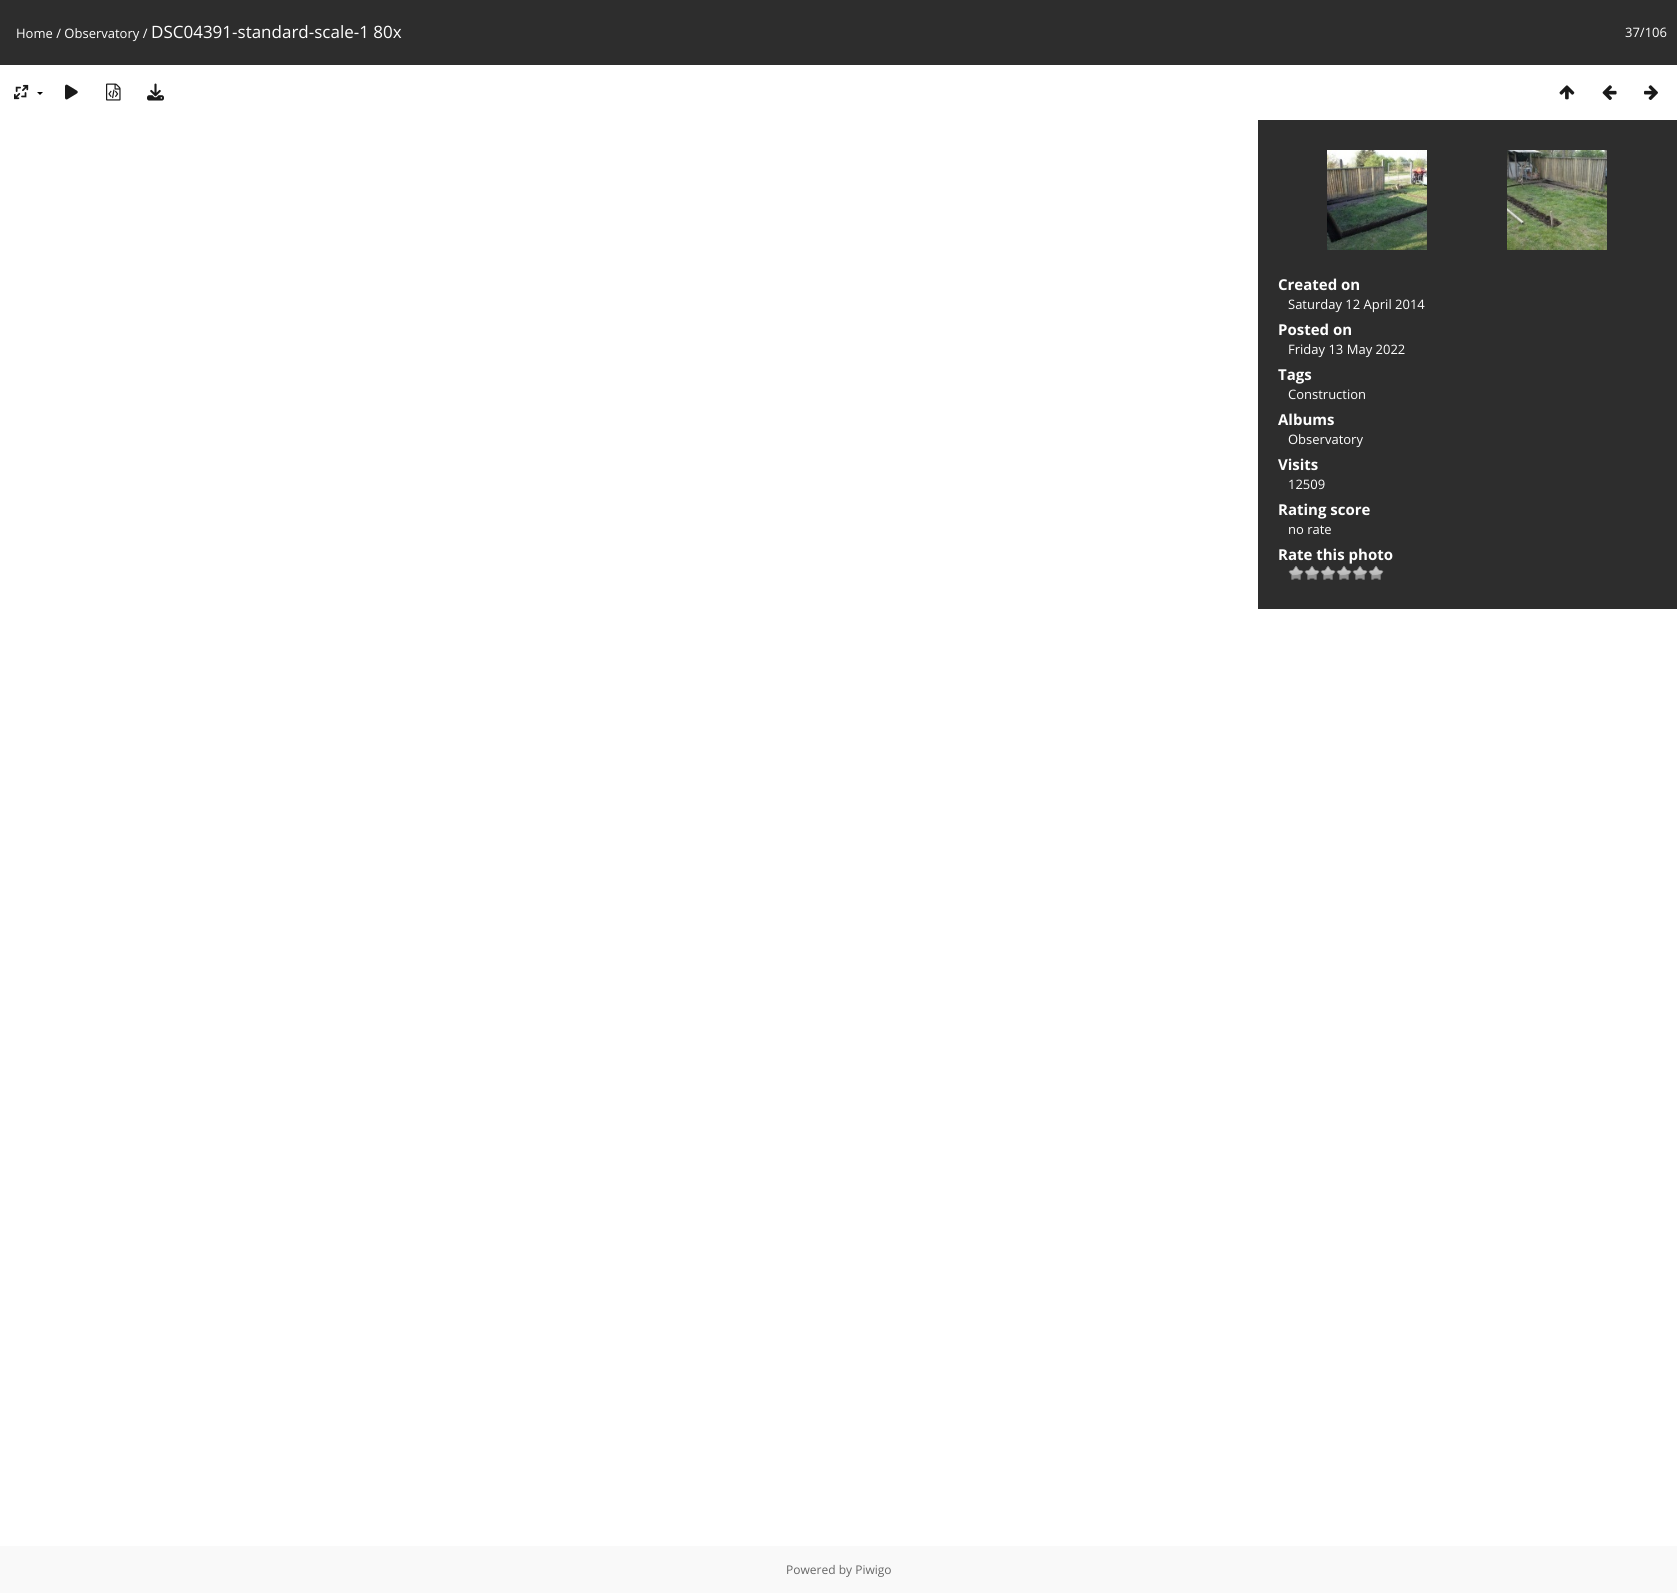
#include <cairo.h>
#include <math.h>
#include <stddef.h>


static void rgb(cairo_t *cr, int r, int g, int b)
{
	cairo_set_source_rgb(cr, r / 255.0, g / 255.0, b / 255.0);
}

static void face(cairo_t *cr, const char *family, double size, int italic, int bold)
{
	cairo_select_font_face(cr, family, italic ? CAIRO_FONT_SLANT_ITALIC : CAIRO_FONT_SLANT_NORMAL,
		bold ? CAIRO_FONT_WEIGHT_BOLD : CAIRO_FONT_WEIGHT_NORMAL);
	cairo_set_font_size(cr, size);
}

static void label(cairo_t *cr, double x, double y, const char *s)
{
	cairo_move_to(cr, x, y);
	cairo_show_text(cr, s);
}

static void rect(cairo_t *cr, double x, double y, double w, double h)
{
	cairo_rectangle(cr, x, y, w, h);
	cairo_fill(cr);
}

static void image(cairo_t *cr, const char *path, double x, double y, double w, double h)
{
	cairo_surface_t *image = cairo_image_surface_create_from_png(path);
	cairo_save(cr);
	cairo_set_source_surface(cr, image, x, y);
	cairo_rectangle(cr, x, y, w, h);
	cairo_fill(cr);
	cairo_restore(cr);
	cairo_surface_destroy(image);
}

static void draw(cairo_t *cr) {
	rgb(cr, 255, 255, 255);
	cairo_paint(cr);
	rgb(cr, 45, 45, 45);
	rect(cr, 0, 0, 1677, 65);
	face(cr, "Open Sans", 13, 0, 0);
	rgb(cr, 255, 255, 255);
	label(cr, 16, 38, "Home / Observatory /");
	face(cr, "Open Sans", 17, 0, 0);
	label(cr, 151, 38, "DSC04391-standard-scale-1 80x");
	face(cr, "Open Sans", 13, 0, 0);
	label(cr, 1625, 37, "37/106");
	image(cr, "image0.png", 14, 84, 15, 16);
	rgb(cr, 0, 0, 0);
	cairo_new_path(cr);
	cairo_move_to(cr, 37, 92);
	cairo_line_to(cr, 43, 92);
	cairo_line_to(cr, 40, 95);
	cairo_close_path(cr);
	cairo_fill(cr);
	image(cr, "image1.png", 65, 84, 13, 16);
	image(cr, "image2.png", 106, 83, 15, 18);
	image(cr, "image3.png", 147, 83, 17, 18);
	image(cr, "image4.png", 1559, 85, 16, 15);
	image(cr, "image5.png", 1602, 85, 15, 15);
	image(cr, "image6.png", 1644, 85, 14, 15);
	rgb(cr, 45, 45, 45);
	rect(cr, 1258, 120, 419, 489);
	image(cr, "image7.png", 1327, 150, 100, 100);
	image(cr, "image8.png", 1507, 150, 100, 100);
	face(cr, "Open Sans", 15, 0, 1);
	rgb(cr, 255, 255, 255);
	label(cr, 1278, 290, "Created on");
	face(cr, "Open Sans", 13, 0, 0);
	label(cr, 1288, 309, "Saturday 12 April 2014");
	face(cr, "Open Sans", 15, 0, 1);
	label(cr, 1278, 335, "Posted on");
	face(cr, "Open Sans", 13, 0, 0);
	label(cr, 1288, 354, "Friday 13 May 2022");
	face(cr, "Open Sans", 15, 0, 1);
	label(cr, 1278, 380, "Tags");
	face(cr, "Open Sans", 13, 0, 0);
	label(cr, 1288, 399, "Construction");
	face(cr, "Open Sans", 15, 0, 1);
	label(cr, 1278, 425, "Albums");
	face(cr, "Open Sans", 13, 0, 0);
	label(cr, 1288, 444, "Observatory");
	face(cr, "Open Sans", 15, 0, 1);
	label(cr, 1278, 470, "Visits");
	face(cr, "Open Sans", 13, 0, 0);
	label(cr, 1288, 489, "12509");
	face(cr, "Open Sans", 15, 0, 1);
	label(cr, 1278, 515, "Rating score");
	face(cr, "Open Sans", 13, 0, 0);
	label(cr, 1288, 534, "no rate");
	face(cr, "Open Sans", 15, 0, 1);
	label(cr, 1278, 560, "Rate this photo");
	image(cr, "image9.png", 1288, 566, 16, 14);
	image(cr, "image9.png", 1304, 566, 16, 14);
	image(cr, "image9.png", 1320, 566, 16, 14);
	image(cr, "image9.png", 1336, 566, 16, 14);
	image(cr, "image9.png", 1352, 566, 16, 14);
	image(cr, "image9.png", 1368, 566, 16, 14);
	rgb(cr, 249, 249, 249);
	rect(cr, 0, 1546, 1677, 47);
	face(cr, "Open Sans", 12, 0, 0);
	rgb(cr, 102, 102, 102);
	label(cr, 786, 1574, "Powered by Piwigo");
}

int main(void) {
	cairo_surface_t *surface = cairo_image_surface_create(CAIRO_FORMAT_RGB24, 1677, 1593);
	cairo_t *cr = cairo_create(surface);
	cairo_font_options_t *options = cairo_font_options_create();
	cairo_font_options_set_hint_metrics(options, CAIRO_HINT_METRICS_OFF);
	cairo_font_options_set_hint_style(options, CAIRO_HINT_STYLE_NONE);
	cairo_set_font_options(cr, options);
	cairo_set_miter_limit(cr, 4);
	draw(cr);
	cairo_surface_write_to_png(surface, "render.png");
	cairo_font_options_destroy(options);
	cairo_destroy(cr);
	cairo_surface_destroy(surface);
	return 0;
}
